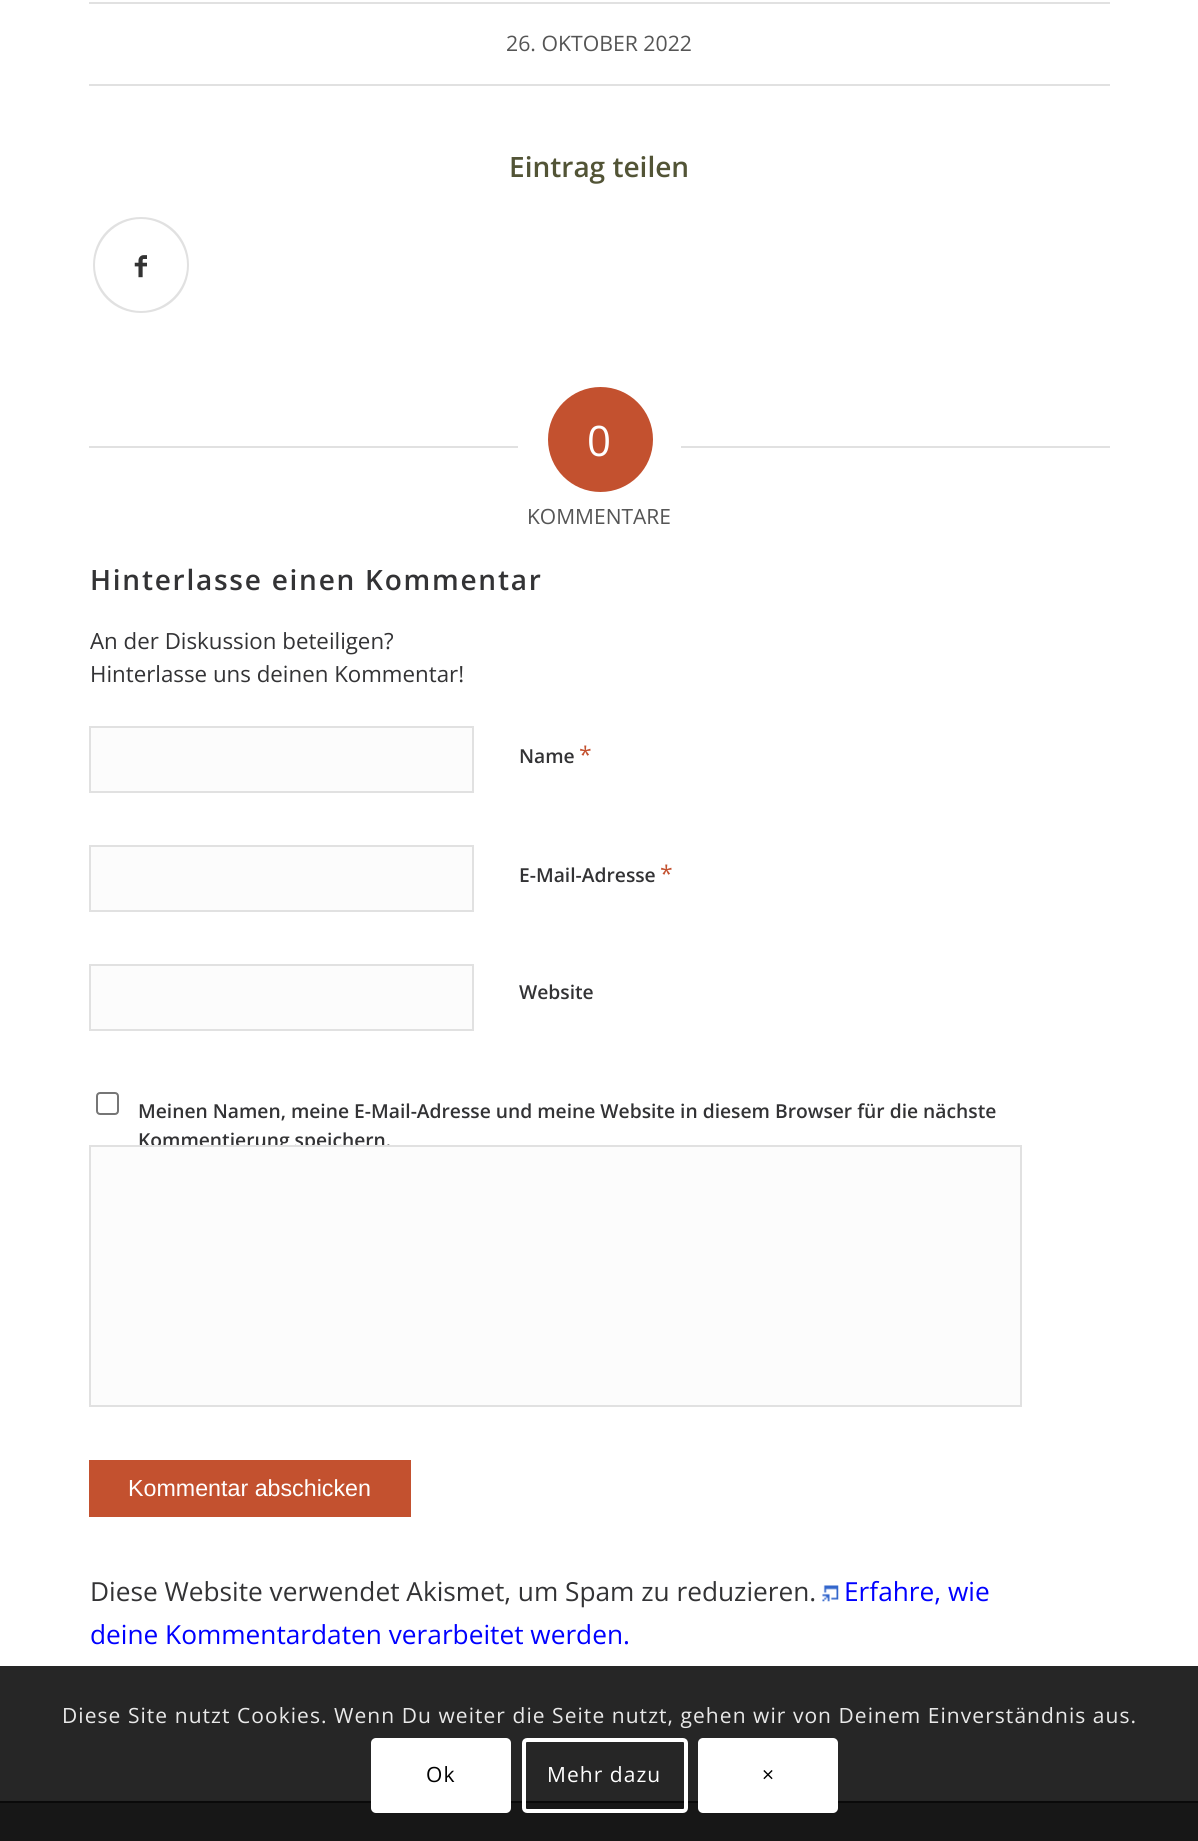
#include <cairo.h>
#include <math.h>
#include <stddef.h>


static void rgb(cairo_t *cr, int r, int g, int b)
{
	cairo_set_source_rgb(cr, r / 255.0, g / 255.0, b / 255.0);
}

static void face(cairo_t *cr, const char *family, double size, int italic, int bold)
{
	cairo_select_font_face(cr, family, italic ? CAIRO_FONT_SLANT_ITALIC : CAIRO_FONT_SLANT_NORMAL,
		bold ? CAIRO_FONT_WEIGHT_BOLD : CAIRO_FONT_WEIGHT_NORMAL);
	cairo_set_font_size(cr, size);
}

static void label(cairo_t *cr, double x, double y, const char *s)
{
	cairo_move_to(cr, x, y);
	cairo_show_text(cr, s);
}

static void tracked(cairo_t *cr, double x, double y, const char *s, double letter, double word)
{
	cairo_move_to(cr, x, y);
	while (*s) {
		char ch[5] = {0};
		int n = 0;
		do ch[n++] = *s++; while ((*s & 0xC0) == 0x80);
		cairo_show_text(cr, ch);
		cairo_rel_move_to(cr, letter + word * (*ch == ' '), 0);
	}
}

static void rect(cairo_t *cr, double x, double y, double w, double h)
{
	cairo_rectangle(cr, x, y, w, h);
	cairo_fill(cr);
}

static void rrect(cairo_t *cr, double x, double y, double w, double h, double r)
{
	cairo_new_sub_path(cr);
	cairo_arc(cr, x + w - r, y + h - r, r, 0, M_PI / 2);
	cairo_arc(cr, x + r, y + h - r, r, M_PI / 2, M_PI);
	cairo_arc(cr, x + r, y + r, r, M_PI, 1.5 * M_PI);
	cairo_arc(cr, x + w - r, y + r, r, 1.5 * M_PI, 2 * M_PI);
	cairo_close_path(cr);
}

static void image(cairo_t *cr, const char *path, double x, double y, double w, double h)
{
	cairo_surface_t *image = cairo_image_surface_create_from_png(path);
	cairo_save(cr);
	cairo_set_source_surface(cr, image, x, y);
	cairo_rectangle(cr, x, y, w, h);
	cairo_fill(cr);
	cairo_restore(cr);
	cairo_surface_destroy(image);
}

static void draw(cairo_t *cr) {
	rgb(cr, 255, 255, 255);
	cairo_paint(cr);
	rgb(cr, 38, 38, 38);
	rect(cr, 0, 1666, 1198, 135);
	rgb(cr, 225, 225, 225);
	rect(cr, 89, 2, 1021, 2);
	rect(cr, 89, 84, 1021, 2);
	face(cr, "Open Sans", 21.25, 0, 0);
	rgb(cr, 85, 85, 85);
	label(cr, 506, 51, "26. OKTOBER 2022");
	face(cr, "Open Sans SemiBold", 28, 0, 0);
	rgb(cr, 82, 84, 54);
	label(cr, 509, 177, "Eintrag teilen");
	rgb(cr, 225, 225, 225);
	cairo_set_fill_rule(cr, CAIRO_FILL_RULE_EVEN_ODD);
	cairo_new_path(cr);
	cairo_move_to(cr, 141, 217);
	cairo_curve_to(cr, 168, 217, 189, 238, 189, 265);
	cairo_curve_to(cr, 189, 292, 168, 313, 141, 313);
	cairo_curve_to(cr, 114, 313, 93, 292, 93, 265);
	cairo_curve_to(cr, 93, 238, 114, 217, 141, 217);
	cairo_close_path(cr);
	cairo_move_to(cr, 141, 219);
	cairo_curve_to(cr, 116, 219, 95, 240, 95, 265);
	cairo_curve_to(cr, 95, 290, 116, 311, 141, 311);
	cairo_curve_to(cr, 166, 311, 187, 290, 187, 265);
	cairo_curve_to(cr, 187, 240, 166, 219, 141, 219);
	cairo_close_path(cr);
	cairo_fill(cr);
	image(cr, "image0.png", 134, 255, 13, 23);
	rect(cr, 89, 446, 429, 2);
	rgb(cr, 195, 81, 47);
	cairo_arc(cr, 600.5, 439.5, 52.5, 0, 2 * M_PI);
	cairo_fill(cr);
	face(cr, "Open Sans", 42, 0, 0);
	rgb(cr, 255, 255, 255);
	label(cr, 587, 456, "0");
	rgb(cr, 225, 225, 225);
	rect(cr, 681, 446, 429, 2);
	face(cr, "Open Sans", 21, 0, 0);
	rgb(cr, 85, 85, 85);
	label(cr, 527, 524, "KOMMENTARE");
	face(cr, "Open Sans SemiBold", 28, 0, 0);
	rgb(cr, 51, 51, 53);
	tracked(cr, 90, 590, "Hinterlasse einen Kommentar", 1.75, 0);
	face(cr, "Open Sans", 22.3, 0, 0);
	label(cr, 90, 649, "An der Diskussion beteiligen?");
	label(cr, 90, 682, "Hinterlasse uns deinen Kommentar!");
	rgb(cr, 252, 252, 252);
	cairo_rectangle(cr, 90, 727, 383, 65);
	cairo_fill_preserve(cr);
	rgb(cr, 225, 225, 225);
	cairo_stroke(cr);
	face(cr, "Open Sans SemiBold", 19.25, 0, 0);
	rgb(cr, 51, 51, 53);
	label(cr, 519, 763, "Name");
	face(cr, "Open Sans", 23, 0, 0);
	rgb(cr, 195, 81, 47);
	label(cr, 579, 763, "*");
	rgb(cr, 252, 252, 252);
	cairo_rectangle(cr, 90, 846, 383, 65);
	cairo_fill_preserve(cr);
	rgb(cr, 225, 225, 225);
	cairo_stroke(cr);
	face(cr, "Open Sans SemiBold", 19.25, 0, 0);
	rgb(cr, 51, 51, 53);
	label(cr, 519, 882, "E-Mail-Adresse");
	face(cr, "Open Sans", 23, 0, 0);
	rgb(cr, 195, 81, 47);
	label(cr, 660, 882, "*");
	rgb(cr, 252, 252, 252);
	cairo_rectangle(cr, 90, 965, 383, 65);
	cairo_fill_preserve(cr);
	rgb(cr, 225, 225, 225);
	cairo_stroke(cr);
	face(cr, "Open Sans SemiBold", 19.25, 0, 0);
	rgb(cr, 51, 51, 53);
	label(cr, 519, 999, "Website");
	rrect(cr, 97, 1093, 21, 21, 3);
	rgb(cr, 118, 118, 118);
	cairo_stroke(cr);
	rgb(cr, 51, 51, 53);
	label(cr, 138, 1118, "Meinen Namen, meine E-Mail-Adresse und meine Website in diesem Browser für die nächste");
	label(cr, 138, 1147, "Kommentierung speichern.");
	rgb(cr, 252, 252, 252);
	cairo_rectangle(cr, 90, 1146, 931, 260);
	cairo_fill_preserve(cr);
	rgb(cr, 225, 225, 225);
	cairo_stroke(cr);
	rgb(cr, 195, 81, 47);
	rect(cr, 89, 1460, 322, 57);
	face(cr, "Liberation Sans", 23.25, 0, 0);
	rgb(cr, 255, 255, 255);
	label(cr, 128, 1496, "Kommentar abschicken");
	face(cr, "Open Sans", 26.25, 0, 0);
	rgb(cr, 51, 51, 53);
	label(cr, 90, 1601, "Diese Website verwendet Akismet, um Spam zu reduzieren.");
	image(cr, "image1.png", 822, 1585, 17, 17);
	rgb(cr, 0, 0, 255);
	label(cr, 844, 1601, "Erfahre, wie");
	label(cr, 90, 1644, "deine Kommentardaten verarbeitet werden.");
	rgb(cr, 23, 23, 23);
	rect(cr, 0, 1803, 1198, 38);
	rgb(cr, 10, 10, 10);
	rect(cr, 0, 1801, 1198, 2);
	face(cr, "Open Sans", 21, 0, 0);
	rgb(cr, 233, 233, 233);
	tracked(cr, 62, 1723, "Diese Site nutzt Cookies. Wenn Du weiter die Seite nutzt, gehen wir von Deinem Einverständnis aus.", 1.05, 0);
	rgb(cr, 255, 255, 255);
	rrect(cr, 371, 1738, 140, 75, 5);
	cairo_fill(cr);
	rgb(cr, 0, 0, 0);
	tracked(cr, 426, 1782, "Ok", 1.05, 0);
	rrect(cr, 524, 1740, 162, 71, 3);
	rgb(cr, 255, 255, 255);
	cairo_set_line_width(cr, 4);
	cairo_stroke(cr);
	tracked(cr, 547, 1782, "Mehr dazu", 1.05, 0);
	rrect(cr, 698, 1738, 140, 75, 5);
	cairo_fill(cr);
	rgb(cr, 0, 0, 0);
	tracked(cr, 762, 1782, "×", 1.05, 0);
}

int main(void) {
	cairo_surface_t *surface = cairo_image_surface_create(CAIRO_FORMAT_RGB24, 1198, 1841);
	cairo_t *cr = cairo_create(surface);
	cairo_font_options_t *options = cairo_font_options_create();
	cairo_font_options_set_hint_metrics(options, CAIRO_HINT_METRICS_OFF);
	cairo_font_options_set_hint_style(options, CAIRO_HINT_STYLE_NONE);
	cairo_set_font_options(cr, options);
	cairo_set_miter_limit(cr, 4);
	draw(cr);
	cairo_surface_write_to_png(surface, "render.png");
	cairo_font_options_destroy(options);
	cairo_destroy(cr);
	cairo_surface_destroy(surface);
	return 0;
}
